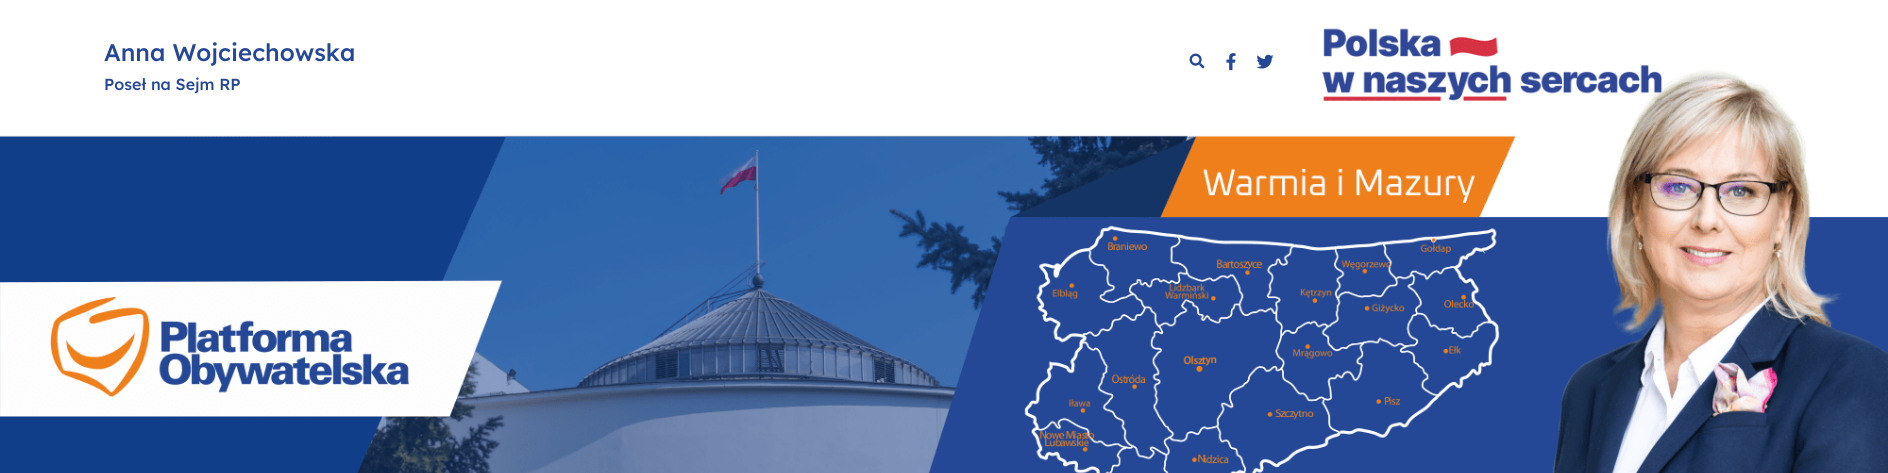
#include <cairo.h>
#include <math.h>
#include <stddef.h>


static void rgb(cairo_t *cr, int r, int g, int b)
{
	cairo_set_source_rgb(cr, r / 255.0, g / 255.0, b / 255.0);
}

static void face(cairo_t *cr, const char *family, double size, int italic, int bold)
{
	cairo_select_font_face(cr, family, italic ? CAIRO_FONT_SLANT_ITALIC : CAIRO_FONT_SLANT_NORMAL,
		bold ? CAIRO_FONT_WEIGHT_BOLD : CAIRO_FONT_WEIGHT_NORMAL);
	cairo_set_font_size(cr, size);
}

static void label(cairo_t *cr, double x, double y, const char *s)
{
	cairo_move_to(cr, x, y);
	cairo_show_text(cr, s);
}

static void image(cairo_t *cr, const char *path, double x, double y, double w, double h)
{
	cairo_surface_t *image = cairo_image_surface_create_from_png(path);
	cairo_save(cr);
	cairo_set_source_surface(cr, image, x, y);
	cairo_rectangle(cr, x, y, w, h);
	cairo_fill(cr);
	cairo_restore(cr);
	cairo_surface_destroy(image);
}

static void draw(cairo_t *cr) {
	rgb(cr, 255, 255, 255);
	cairo_paint(cr);
	face(cr, "Lexend Deca Medium", 24, 0, 0);
	rgb(cr, 37, 72, 150);
	label(cr, 104, 61, "Anna Wojciechowska");
	face(cr, "Lexend Deca Medium", 16, 0, 0);
	label(cr, 104, 90, "Poseł na Sejm RP");
	image(cr, "image0.png", 1189, 53, 16, 16);
	image(cr, "image1.png", 1226, 53, 10, 18);
	image(cr, "image2.png", 1256, 54, 18, 15);
	image(cr, "image3.png", 1322, 28, 340, 73);
	image(cr, "image4.png", 0, 69, 1888, 404);
}

int main(void) {
	cairo_surface_t *surface = cairo_image_surface_create(CAIRO_FORMAT_RGB24, 1888, 473);
	cairo_t *cr = cairo_create(surface);
	cairo_font_options_t *options = cairo_font_options_create();
	cairo_font_options_set_hint_metrics(options, CAIRO_HINT_METRICS_OFF);
	cairo_font_options_set_hint_style(options, CAIRO_HINT_STYLE_NONE);
	cairo_set_font_options(cr, options);
	cairo_set_miter_limit(cr, 4);
	draw(cr);
	cairo_surface_write_to_png(surface, "render.png");
	cairo_font_options_destroy(options);
	cairo_destroy(cr);
	cairo_surface_destroy(surface);
	return 0;
}
